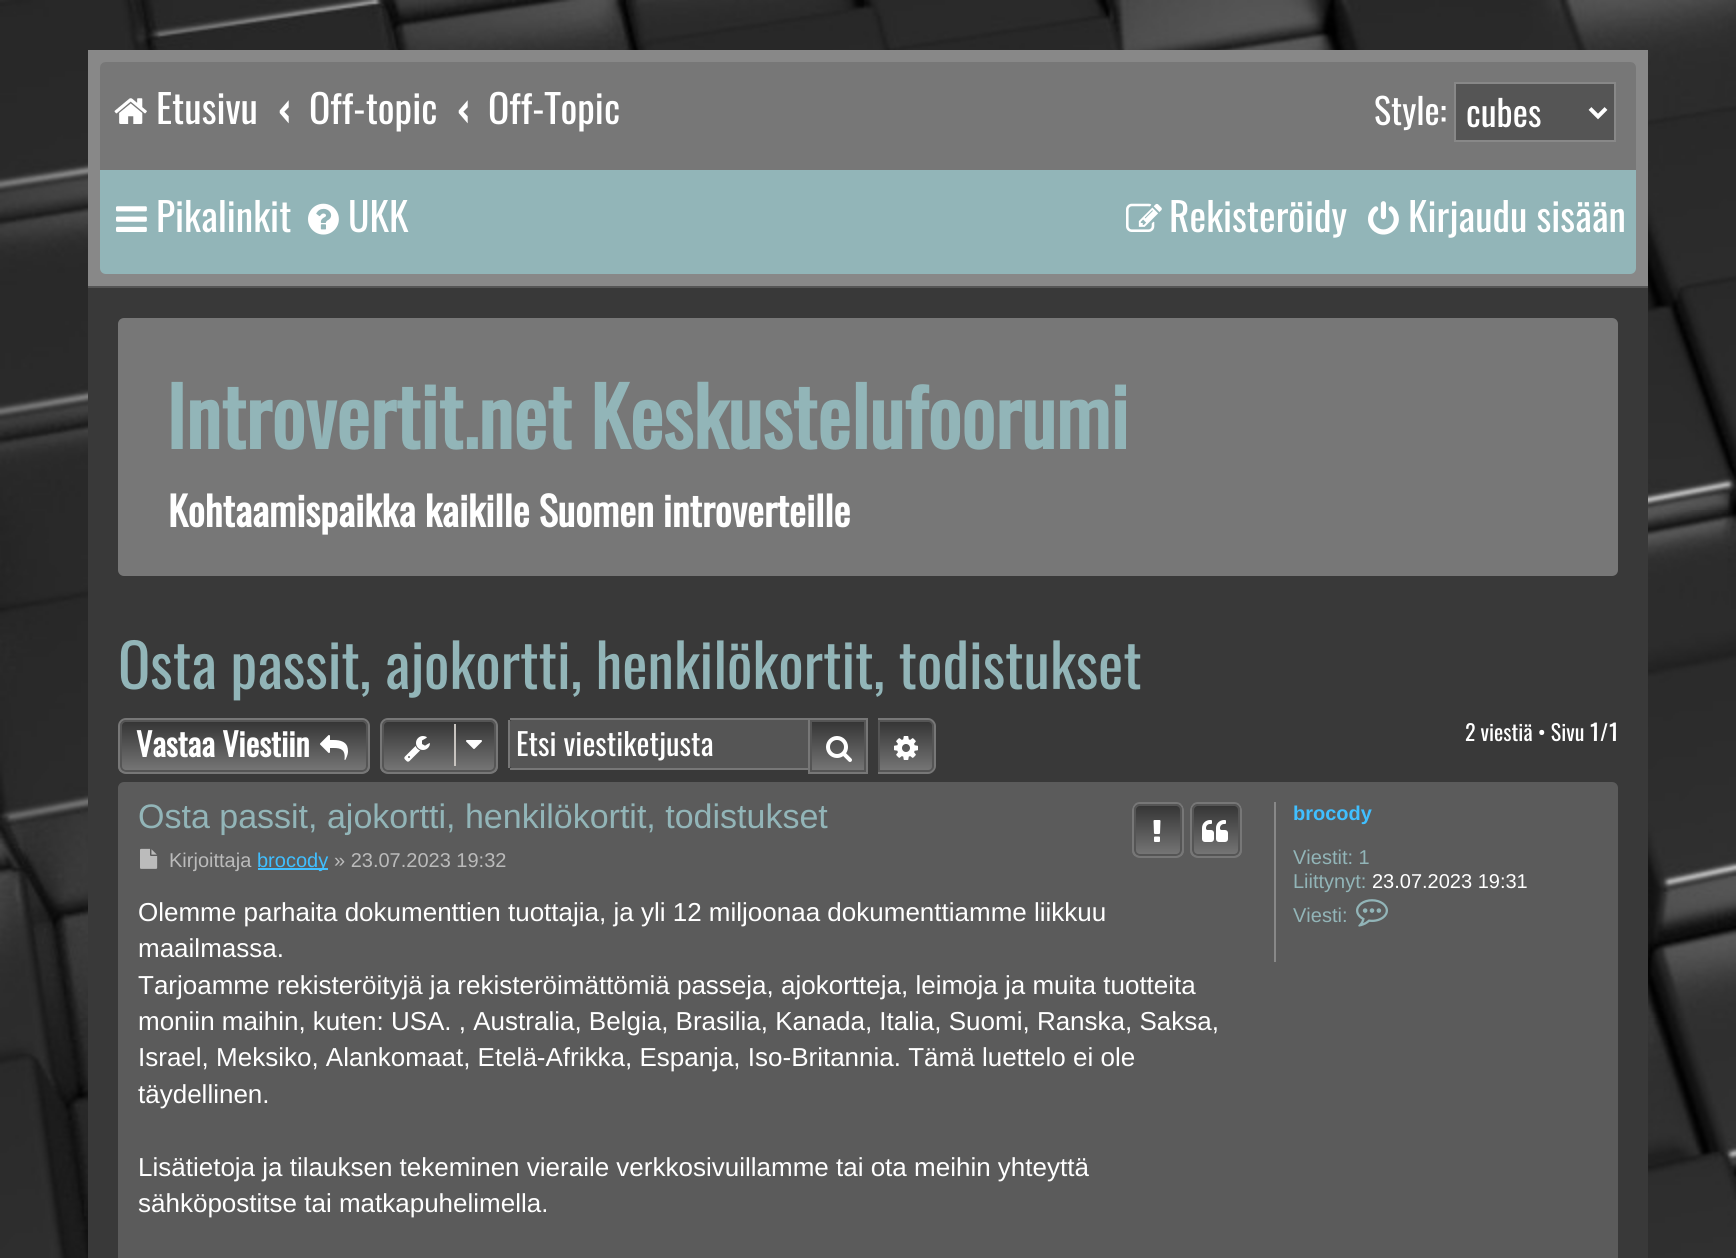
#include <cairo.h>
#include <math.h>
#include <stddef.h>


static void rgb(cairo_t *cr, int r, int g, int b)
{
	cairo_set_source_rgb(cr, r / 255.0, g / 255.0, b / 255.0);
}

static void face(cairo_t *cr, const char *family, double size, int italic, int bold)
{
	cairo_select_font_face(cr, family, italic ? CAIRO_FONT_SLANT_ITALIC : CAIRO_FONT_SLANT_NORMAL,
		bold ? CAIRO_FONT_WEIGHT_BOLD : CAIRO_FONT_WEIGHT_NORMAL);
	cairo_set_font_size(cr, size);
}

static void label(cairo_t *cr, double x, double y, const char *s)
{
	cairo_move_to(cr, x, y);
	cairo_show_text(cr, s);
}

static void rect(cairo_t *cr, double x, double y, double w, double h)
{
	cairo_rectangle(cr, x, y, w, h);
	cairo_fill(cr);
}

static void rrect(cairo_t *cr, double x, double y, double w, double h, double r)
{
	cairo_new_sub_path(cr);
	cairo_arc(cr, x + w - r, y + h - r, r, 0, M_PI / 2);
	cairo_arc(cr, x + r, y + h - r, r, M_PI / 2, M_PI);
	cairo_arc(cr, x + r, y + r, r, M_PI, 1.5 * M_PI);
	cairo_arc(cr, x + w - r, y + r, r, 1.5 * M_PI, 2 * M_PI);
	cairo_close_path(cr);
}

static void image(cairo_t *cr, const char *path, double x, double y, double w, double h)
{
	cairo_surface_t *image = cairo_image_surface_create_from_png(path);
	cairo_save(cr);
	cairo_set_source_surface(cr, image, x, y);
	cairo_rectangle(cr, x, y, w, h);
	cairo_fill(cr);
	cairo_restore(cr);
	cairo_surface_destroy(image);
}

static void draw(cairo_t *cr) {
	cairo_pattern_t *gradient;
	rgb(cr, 255, 255, 255);
	cairo_paint(cr);
	image(cr, "image0.png", 0, 0, 1736, 1258);
	rgb(cr, 136, 136, 136);
	rect(cr, 88, 50, 1560, 236);
	rgb(cr, 119, 119, 119);
	cairo_new_path(cr);
	cairo_move_to(cr, 106, 62);
	cairo_line_to(cr, 1630, 62);
	cairo_curve_to(cr, 1633.5, 62, 1636, 64.5, 1636, 68);
	cairo_line_to(cr, 1636, 170);
	cairo_line_to(cr, 100, 170);
	cairo_line_to(cr, 100, 68);
	cairo_curve_to(cr, 100, 64.5, 102.5, 62, 106, 62);
	cairo_close_path(cr);
	cairo_fill(cr);
	image(cr, "image1.png", 114, 98, 33, 26);
	face(cr, "Oswald", 39.5, 0, 0);
	rgb(cr, 255, 255, 255);
	label(cr, 156, 124, "Etusivu");
	face(cr, "Oswald", 39.5, 0, 1);
	label(cr, 278, 124, "‹");
	face(cr, "Oswald", 39.5, 0, 0);
	label(cr, 309, 124, "Off-topic");
	face(cr, "Oswald", 39.5, 0, 1);
	label(cr, 457, 124, "‹");
	face(cr, "Oswald", 39.5, 0, 0);
	label(cr, 488, 124, "Off-Topic");
	face(cr, "Oswald", 36, 0, 0);
	label(cr, 1374, 125, "Style:");
	rgb(cr, 85, 85, 85);
	cairo_rectangle(cr, 1455, 83, 160, 58);
	cairo_fill_preserve(cr);
	rgb(cr, 136, 136, 136);
	cairo_stroke(cr);
	cairo_new_path(cr);
	cairo_move_to(cr, 1590, 108.5);
	cairo_line_to(cr, 1598, 116.5);
	cairo_line_to(cr, 1606, 108.5);
	rgb(cr, 255, 255, 255);
	cairo_set_line_width(cr, 4);
	cairo_stroke(cr);
	label(cr, 1466, 127, "cubes");
	rgb(cr, 146, 181, 184);
	cairo_new_path(cr);
	cairo_move_to(cr, 100, 170);
	cairo_line_to(cr, 1636, 170);
	cairo_line_to(cr, 1636, 268);
	cairo_curve_to(cr, 1636, 271.5, 1633.5, 274, 1630, 274);
	cairo_line_to(cr, 106, 274);
	cairo_curve_to(cr, 102.5, 274, 100, 271.5, 100, 268);
	cairo_close_path(cr);
	cairo_fill(cr);
	image(cr, "image2.png", 116, 206, 31, 26);
	face(cr, "Oswald", 39.5, 0, 0);
	rgb(cr, 255, 255, 255);
	label(cr, 156, 232, "Pikalinkit");
	image(cr, "image3.png", 308, 203, 31, 32);
	label(cr, 348, 232, "UKK");
	image(cr, "image4.png", 1126, 203, 36, 29);
	label(cr, 1169, 232, "Rekisteröidy");
	image(cr, "image5.png", 1368, 201, 31, 34);
	label(cr, 1408, 232, "Kirjaudu sisään");
	rgb(cr, 57, 57, 57);
	rect(cr, 88, 288, 1560, 970);
	rgb(cr, 85, 85, 85);
	rect(cr, 88, 286, 1560, 2);
	rgb(cr, 119, 119, 119);
	rrect(cr, 118, 318, 1500, 258, 6);
	cairo_fill(cr);
	face(cr, "Oswald", 80, 0, 1);
	rgb(cr, 146, 181, 184);
	label(cr, 166, 449, "Introvertit.net Keskustelufoorumi");
	face(cr, "Oswald", 40, 0, 1);
	rgb(cr, 255, 255, 255);
	label(cr, 168, 527, "Kohtaamispaikka kaikille Suomen introverteille");
	face(cr, "Oswald", 60, 0, 0);
	rgb(cr, 146, 181, 184);
	label(cr, 118, 689, "Osta passit, ajokortti, henkilökortit, todistukset");
	cairo_save(cr);
	rrect(cr, 118, 718, 252, 56, 8);
	cairo_clip(cr);
	gradient = cairo_pattern_create_linear(244, 720, 244, 772);
	cairo_pattern_add_color_stop_rgba(gradient, 0, 0.2, 0.2, 0.2, 1);
	cairo_pattern_add_color_stop_rgba(gradient, 1, 0.467, 0.467, 0.467, 1);
	cairo_set_source(cr, gradient);
	cairo_pattern_destroy(gradient);
	rect(cr, 118, 720, 252, 52);
	cairo_restore(cr);
	rrect(cr, 121, 721, 246, 50, 5);
	rgb(cr, 85, 85, 85);
	cairo_set_line_width(cr, 2);
	cairo_stroke(cr);
	rrect(cr, 119, 719, 250, 54, 7);
	rgb(cr, 119, 119, 119);
	cairo_stroke(cr);
	face(cr, "Oswald", 32, 0, 1);
	rgb(cr, 255, 255, 255);
	label(cr, 136, 757, "Vastaa Viestiin");
	image(cr, "image6.png", 320, 735, 28, 25);
	cairo_save(cr);
	rrect(cr, 380, 718, 118, 56, 8);
	cairo_clip(cr);
	gradient = cairo_pattern_create_linear(439, 720, 439, 772);
	cairo_pattern_add_color_stop_rgba(gradient, 0, 0.2, 0.2, 0.2, 1);
	cairo_pattern_add_color_stop_rgba(gradient, 1, 0.467, 0.467, 0.467, 1);
	cairo_set_source(cr, gradient);
	cairo_pattern_destroy(gradient);
	rect(cr, 380, 720, 118, 52);
	cairo_restore(cr);
	rrect(cr, 383, 721, 112, 50, 5);
	rgb(cr, 85, 85, 85);
	cairo_stroke(cr);
	rrect(cr, 381, 719, 116, 54, 7);
	rgb(cr, 119, 119, 119);
	cairo_stroke(cr);
	image(cr, "image7.png", 404, 736, 26, 26);
	rgb(cr, 199, 195, 191);
	rect(cr, 454, 724, 2, 42);
	image(cr, "image8.png", 466, 740, 16, 9);
	rgb(cr, 85, 85, 85);
	cairo_new_path(cr);
	cairo_move_to(cr, 512, 720);
	cairo_line_to(cr, 808, 720);
	cairo_line_to(cr, 808, 768);
	cairo_line_to(cr, 512, 768);
	cairo_curve_to(cr, 511, 768, 510, 767, 510, 766);
	cairo_line_to(cr, 510, 722);
	cairo_curve_to(cr, 510, 721, 511, 720, 512, 720);
	cairo_close_path(cr);
	cairo_fill(cr);
	rgb(cr, 119, 119, 119);
	rect(cr, 510, 718, 298, 2);
	rect(cr, 510, 768, 298, 2);
	rect(cr, 508, 720, 2, 48);
	face(cr, "Oswald", 30.75, 0, 0);
	rgb(cr, 255, 255, 255);
	label(cr, 516, 756, "Etsi viestiketjusta");
	gradient = cairo_pattern_create_linear(838, 720, 838, 772);
	cairo_pattern_add_color_stop_rgba(gradient, 0, 0.2, 0.2, 0.2, 1);
	cairo_pattern_add_color_stop_rgba(gradient, 1, 0.467, 0.467, 0.467, 1);
	cairo_set_source(cr, gradient);
	cairo_pattern_destroy(gradient);
	rect(cr, 812, 722, 52, 48);
	cairo_rectangle(cr, 811, 721, 54, 50);
	rgb(cr, 85, 85, 85);
	cairo_stroke(cr);
	cairo_rectangle(cr, 809, 719, 58, 54);
	rgb(cr, 119, 119, 119);
	cairo_stroke(cr);
	image(cr, "image9.png", 826, 736, 26, 26);
	gradient = cairo_pattern_create_linear(906, 720, 906, 772);
	cairo_pattern_add_color_stop_rgba(gradient, 0, 0.2, 0.2, 0.2, 1);
	cairo_pattern_add_color_stop_rgba(gradient, 1, 0.467, 0.467, 0.467, 1);
	cairo_set_source(cr, gradient);
	cairo_pattern_destroy(gradient);
	cairo_new_path(cr);
	cairo_move_to(cr, 879, 721);
	cairo_line_to(cr, 928, 721);
	cairo_curve_to(cr, 931, 721, 933, 723, 933, 726);
	cairo_line_to(cr, 933, 766);
	cairo_curve_to(cr, 933, 769, 931, 771, 928, 771);
	cairo_line_to(cr, 879, 771);
	cairo_close_path(cr);
	cairo_fill_preserve(cr);
	rgb(cr, 85, 85, 85);
	cairo_stroke(cr);
	rgb(cr, 119, 119, 119);
	cairo_set_fill_rule(cr, CAIRO_FILL_RULE_EVEN_ODD);
	cairo_new_path(cr);
	cairo_move_to(cr, 878, 718);
	cairo_line_to(cr, 928, 718);
	cairo_curve_to(cr, 932, 718, 936, 722, 936, 726);
	cairo_line_to(cr, 936, 766);
	cairo_curve_to(cr, 936, 770, 932, 774, 928, 774);
	cairo_line_to(cr, 878, 774);
	cairo_close_path(cr);
	cairo_move_to(cr, 878, 720);
	cairo_line_to(cr, 928, 720);
	cairo_curve_to(cr, 931, 720, 934, 723, 934, 726);
	cairo_line_to(cr, 934, 766);
	cairo_curve_to(cr, 934, 769, 931, 772, 928, 772);
	cairo_line_to(cr, 878, 772);
	cairo_close_path(cr);
	cairo_fill(cr);
	image(cr, "image10.png", 894, 736, 24, 24);
	face(cr, "Oswald", 22, 0, 0);
	rgb(cr, 255, 255, 255);
	label(cr, 1465, 741, "2 viestiä • Sivu");
	face(cr, "Oswald", 22, 0, 1);
	label(cr, 1589, 741, "1");
	face(cr, "Oswald", 22, 0, 0);
	label(cr, 1600, 741, "/");
	face(cr, "Oswald", 22, 0, 1);
	label(cr, 1608, 741, "1");
	rgb(cr, 91, 91, 91);
	rrect(cr, 118, 782, 1500, 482, 6);
	cairo_fill(cr);
	face(cr, "Liberation Sans", 34, 0, 0);
	rgb(cr, 146, 181, 184);
	label(cr, 138, 828, "Osta passit, ajokortti, henkilökortit, todistukset");
	cairo_save(cr);
	cairo_set_fill_rule(cr, CAIRO_FILL_RULE_WINDING);
	rrect(cr, 1132, 802, 52, 56, 8);
	cairo_clip(cr);
	gradient = cairo_pattern_create_linear(1158, 804, 1158, 856);
	cairo_pattern_add_color_stop_rgba(gradient, 0, 0.2, 0.2, 0.2, 1);
	cairo_pattern_add_color_stop_rgba(gradient, 1, 0.467, 0.467, 0.467, 1);
	cairo_set_source(cr, gradient);
	cairo_pattern_destroy(gradient);
	rect(cr, 1132, 804, 52, 52);
	cairo_restore(cr);
	rrect(cr, 1135, 805, 46, 50, 5);
	rgb(cr, 85, 85, 85);
	cairo_stroke(cr);
	rrect(cr, 1133, 803, 50, 54, 7);
	rgb(cr, 119, 119, 119);
	cairo_stroke(cr);
	image(cr, "image11.png", 1153, 820, 8, 22);
	cairo_save(cr);
	cairo_set_fill_rule(cr, CAIRO_FILL_RULE_WINDING);
	rrect(cr, 1190, 802, 52, 56, 8);
	cairo_clip(cr);
	gradient = cairo_pattern_create_linear(1216, 804, 1216, 856);
	cairo_pattern_add_color_stop_rgba(gradient, 0, 0.2, 0.2, 0.2, 1);
	cairo_pattern_add_color_stop_rgba(gradient, 1, 0.467, 0.467, 0.467, 1);
	cairo_set_source(cr, gradient);
	cairo_pattern_destroy(gradient);
	rect(cr, 1190, 804, 52, 52);
	cairo_restore(cr);
	rrect(cr, 1193, 805, 46, 50, 5);
	rgb(cr, 85, 85, 85);
	cairo_stroke(cr);
	rrect(cr, 1191, 803, 50, 54, 7);
	rgb(cr, 119, 119, 119);
	cairo_stroke(cr);
	image(cr, "image12.png", 1202, 820, 26, 22);
	image(cr, "image13.png", 140, 848, 18, 21);
	face(cr, "Liberation Sans", 20, 0, 0);
	rgb(cr, 187, 187, 187);
	label(cr, 169, 867, "Kirjoittaja");
	rgb(cr, 64, 191, 255);
	rect(cr, 258, 868, 70, 2);
	label(cr, 257, 867, "brocody");
	rgb(cr, 187, 187, 187);
	label(cr, 334, 867, "» 23.07.2023 19:32");
	face(cr, "Liberation Sans", 26, 0, 0);
	rgb(cr, 255, 255, 255);
	label(cr, 138, 921, "Olemme parhaita dokumenttien tuottajia, ja yli 12 miljoonaa dokumenttiamme liikkuu");
	label(cr, 138, 957, "maailmassa.");
	label(cr, 138, 994, "Tarjoamme rekisteröityjä ja rekisteröimättömiä passeja, ajokortteja, leimoja ja muita tuotteita");
	label(cr, 138, 1030, "moniin maihin, kuten: USA. , Australia, Belgia, Brasilia, Kanada, Italia, Suomi, Ranska, Saksa,");
	label(cr, 138, 1066, "Israel, Meksiko, Alankomaat, Etelä-Afrikka, Espanja, Iso-Britannia. Tämä luettelo ei ole");
	label(cr, 138, 1103, "täydellinen.");
	label(cr, 138, 1176, "Lisätietoja ja tilauksen tekeminen vieraile verkkosivuillamme tai ota meihin yhteyttä");
	label(cr, 138, 1212, "sähköpostitse tai matkapuhelimella.");
	rgb(cr, 136, 136, 136);
	rect(cr, 1274, 802, 2, 160);
	face(cr, "Liberation Sans", 20, 0, 1);
	rgb(cr, 64, 191, 255);
	label(cr, 1293, 820, "brocody");
	face(cr, "Liberation Sans", 20, 0, 0);
	rgb(cr, 146, 181, 184);
	label(cr, 1293, 864, "Viestit: 1");
	label(cr, 1293, 888, "Liittynyt:");
	rgb(cr, 255, 255, 255);
	label(cr, 1372, 888, "23.07.2023 19:31");
	rgb(cr, 146, 181, 184);
	label(cr, 1293, 922, "Viesti:");
	image(cr, "image14.png", 1356, 899, 32, 28);
}

int main(void) {
	cairo_surface_t *surface = cairo_image_surface_create(CAIRO_FORMAT_RGB24, 1736, 1258);
	cairo_t *cr = cairo_create(surface);
	cairo_font_options_t *options = cairo_font_options_create();
	cairo_font_options_set_hint_metrics(options, CAIRO_HINT_METRICS_OFF);
	cairo_font_options_set_hint_style(options, CAIRO_HINT_STYLE_NONE);
	cairo_set_font_options(cr, options);
	cairo_set_miter_limit(cr, 4);
	draw(cr);
	cairo_surface_write_to_png(surface, "render.png");
	cairo_font_options_destroy(options);
	cairo_destroy(cr);
	cairo_surface_destroy(surface);
	return 0;
}
